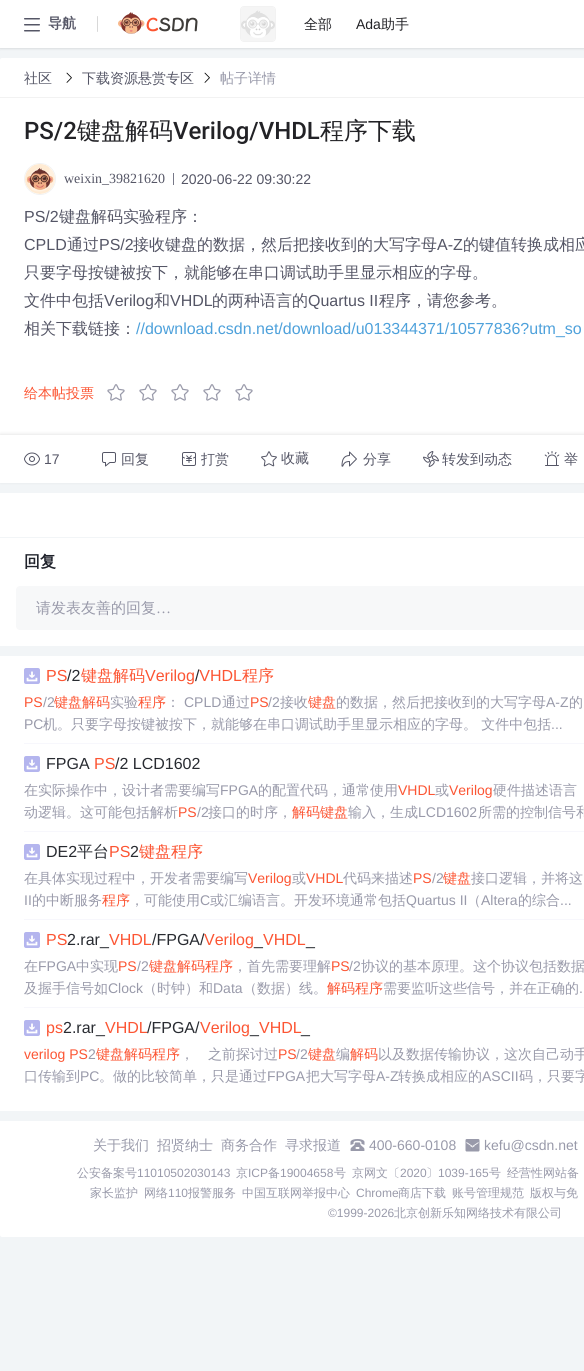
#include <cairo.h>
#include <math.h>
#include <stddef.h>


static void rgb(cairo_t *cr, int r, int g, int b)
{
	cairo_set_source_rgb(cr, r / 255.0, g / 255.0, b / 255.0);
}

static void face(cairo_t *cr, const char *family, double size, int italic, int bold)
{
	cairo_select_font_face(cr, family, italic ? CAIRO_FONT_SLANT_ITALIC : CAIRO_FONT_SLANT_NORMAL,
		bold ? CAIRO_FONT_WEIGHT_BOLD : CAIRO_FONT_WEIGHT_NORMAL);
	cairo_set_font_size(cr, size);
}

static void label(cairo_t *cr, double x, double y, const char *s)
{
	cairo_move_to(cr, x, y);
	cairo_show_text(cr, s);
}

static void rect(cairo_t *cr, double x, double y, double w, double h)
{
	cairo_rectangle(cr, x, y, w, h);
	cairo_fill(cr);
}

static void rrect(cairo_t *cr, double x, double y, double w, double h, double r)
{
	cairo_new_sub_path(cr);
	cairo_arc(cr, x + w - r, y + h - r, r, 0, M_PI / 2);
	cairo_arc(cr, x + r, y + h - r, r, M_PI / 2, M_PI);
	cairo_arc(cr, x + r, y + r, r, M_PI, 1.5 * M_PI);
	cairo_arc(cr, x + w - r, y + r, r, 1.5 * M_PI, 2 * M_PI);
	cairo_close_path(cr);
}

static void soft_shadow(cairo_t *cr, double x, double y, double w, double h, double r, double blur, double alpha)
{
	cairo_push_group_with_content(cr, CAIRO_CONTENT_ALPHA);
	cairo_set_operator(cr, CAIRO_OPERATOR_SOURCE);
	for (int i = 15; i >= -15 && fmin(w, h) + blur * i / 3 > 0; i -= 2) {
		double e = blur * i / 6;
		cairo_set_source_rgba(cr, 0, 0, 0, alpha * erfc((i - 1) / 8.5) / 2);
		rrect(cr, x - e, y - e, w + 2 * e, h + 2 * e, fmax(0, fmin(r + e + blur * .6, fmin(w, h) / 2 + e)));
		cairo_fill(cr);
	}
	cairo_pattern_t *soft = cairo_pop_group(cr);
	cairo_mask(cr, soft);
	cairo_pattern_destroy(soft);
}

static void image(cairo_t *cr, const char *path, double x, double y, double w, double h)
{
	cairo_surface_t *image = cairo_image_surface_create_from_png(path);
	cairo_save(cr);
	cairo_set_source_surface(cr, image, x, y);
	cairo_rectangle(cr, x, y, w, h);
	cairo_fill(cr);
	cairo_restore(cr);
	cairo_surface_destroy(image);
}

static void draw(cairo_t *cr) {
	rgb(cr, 242, 245, 247);
	cairo_paint(cr);
	rgb(cr, 0, 0, 0);
	soft_shadow(cr, 0, 1, 584, 48, 0, 1, 0.1);
	rgb(cr, 255, 255, 255);
	rect(cr, 0, 0, 584, 48);
	image(cr, "image0.png", 24, 18, 16, 14);
	face(cr, "WenQuanYi Zen Hei", 14, 0, 1);
	rgb(cr, 85, 86, 102);
	label(cr, 48, 28, "导航");
	rgb(cr, 216, 216, 216);
	rrect(cr, 97, 16, 1, 16, 0.5);
	cairo_fill(cr);
	image(cr, "image1.png", 118, 12, 80, 22);
	rrect(cr, 240.5, 6.5, 35, 35, 3.5);
	rgb(cr, 242, 242, 242);
	cairo_set_line_width(cr, 1);
	cairo_stroke(cr);
	image(cr, "image2.png", 241, 7, 34, 34);
	face(cr, "WenQuanYi Zen Hei Medium", 14, 0, 0);
	rgb(cr, 34, 34, 38);
	label(cr, 304, 29, "全部");
	face(cr, "Liberation Sans", 14, 0, 0);
	label(cr, 356, 29, "Ada");
	face(cr, "WenQuanYi Zen Hei Medium", 14, 0, 0);
	label(cr, 381, 29, "助手");
	rgb(cr, 255, 255, 255);
	cairo_new_path(cr);
	cairo_move_to(cr, 2, 58);
	cairo_line_to(cr, 584, 58);
	cairo_curve_to(cr, 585, 58, 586, 59, 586, 60);
	cairo_line_to(cr, 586, 98);
	cairo_line_to(cr, 0, 98);
	cairo_line_to(cr, 0, 60);
	cairo_curve_to(cr, 0, 59, 1, 58, 2, 58);
	cairo_close_path(cr);
	cairo_fill(cr);
	rgb(cr, 242, 242, 242);
	rect(cr, 0, 97, 584, 1);
	rgb(cr, 85, 86, 102);
	label(cr, 24, 83, "社区");
	image(cr, "image3.png", 66, 72, 6, 11);
	label(cr, 82, 83, "下载资源悬赏专区");
	image(cr, "image3.png", 204, 72, 6, 11);
	rgb(cr, 153, 154, 170);
	label(cr, 220, 83, "帖子详情");
	rgb(cr, 255, 255, 255);
	rect(cr, 0, 98, 584, 337);
	face(cr, "Roboto Medium", 24, 0, 0);
	rgb(cr, 34, 34, 38);
	label(cr, 24, 139, "PS/2");
	face(cr, "WenQuanYi Zen Hei Medium", 24, 0, 0);
	label(cr, 77, 139, "键盘解码");
	face(cr, "Roboto Medium", 24, 0, 0);
	label(cr, 173, 139, "Verilog/VHDL");
	face(cr, "WenQuanYi Zen Hei Medium", 24, 0, 0);
	label(cr, 320, 139, "程序下载");
	cairo_new_path(cr);
	cairo_arc(cr, 40, 179, 15.5, 0, 2 * M_PI);
	rgb(cr, 242, 242, 242);
	cairo_stroke(cr);
	image(cr, "image4.png", 25, 164, 30, 30);
	face(cr, "Liberation Serif", 14, 0, 0);
	rgb(cr, 85, 86, 102);
	label(cr, 64, 183, "weixin_39821620");
	rgb(cr, 119, 120, 136);
	rect(cr, 173, 173, 1, 12);
	face(cr, "Liberation Sans", 14, 0, 0);
	rgb(cr, 85, 86, 102);
	label(cr, 181, 184, "2020-06-22 09:30:22");
	face(cr, "Liberation Sans", 16, 0, 0);
	label(cr, 24, 222, "PS/2");
	face(cr, "WenQuanYi Zen Hei Medium", 16, 0, 0);
	label(cr, 59, 222, "键盘解码实验程序：");
	face(cr, "Liberation Sans", 16, 0, 0);
	label(cr, 24, 250, "CPLD");
	face(cr, "WenQuanYi Zen Hei Medium", 16, 0, 0);
	label(cr, 67, 250, "通过");
	face(cr, "Liberation Sans", 16, 0, 0);
	label(cr, 99, 250, "PS/2");
	face(cr, "WenQuanYi Zen Hei Medium", 16, 0, 0);
	label(cr, 133, 250, "接收键盘的数据，然后把接收到的大写字母");
	face(cr, "Liberation Sans", 16, 0, 0);
	label(cr, 437, 250, "A-Z");
	face(cr, "WenQuanYi Zen Hei Medium", 16, 0, 0);
	label(cr, 463, 250, "的键值转换成相应");
	label(cr, 24, 278, "只要字母按键被按下，就能够在串口调试助手里显示相应的字母。");
	label(cr, 24, 306, "文件中包括");
	face(cr, "Liberation Sans", 16, 0, 0);
	label(cr, 104, 306, "Verilog");
	face(cr, "WenQuanYi Zen Hei Medium", 16, 0, 0);
	label(cr, 154, 306, "和");
	face(cr, "Liberation Sans", 16, 0, 0);
	label(cr, 170, 306, "VHDL");
	face(cr, "WenQuanYi Zen Hei Medium", 16, 0, 0);
	label(cr, 212, 306, "的两种语言的");
	face(cr, "Liberation Sans", 16, 0, 0);
	label(cr, 308, 306, "Quartus II");
	face(cr, "WenQuanYi Zen Hei Medium", 16, 0, 0);
	label(cr, 379, 306, "程序，请您参考。");
	label(cr, 24, 334, "相关下载链接：");
	face(cr, "Liberation Sans", 16, 0, 0);
	rgb(cr, 78, 161, 219);
	label(cr, 136, 334, "//download.csdn.net/download/u013344371/10577836?utm_so");
	face(cr, "WenQuanYi Zen Hei Medium", 14, 0, 0);
	rgb(cr, 252, 85, 51);
	label(cr, 24, 398, "给本帖投票");
	image(cr, "image5.png", 107, 384, 18, 17);
	image(cr, "image5.png", 139, 384, 18, 17);
	image(cr, "image5.png", 171, 384, 18, 17);
	image(cr, "image5.png", 203, 384, 18, 17);
	image(cr, "image5.png", 235, 384, 18, 17);
	rgb(cr, 18, 18, 18);
	soft_shadow(cr, 0, 434, 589, 48, 0, 1.5, 0.1);
	rgb(cr, 255, 255, 255);
	rect(cr, 0, 435, 584, 48);
	image(cr, "image6.png", 24, 452, 16, 14);
	face(cr, "Liberation Sans", 14, 0, 0);
	rgb(cr, 85, 86, 102);
	label(cr, 44, 464, "17");
	image(cr, "image7.png", 102, 452, 14, 15);
	face(cr, "WenQuanYi Zen Hei Medium", 14, 0, 0);
	label(cr, 121, 464, "回复");
	image(cr, "image8.png", 182, 452, 14, 14);
	label(cr, 201, 464, "打赏");
	image(cr, "image9.png", 261, 451, 16, 16);
	label(cr, 281, 463, "收藏");
	image(cr, "image10.png", 341, 451, 16, 16);
	label(cr, 363, 464, "分享");
	image(cr, "image11.png", 423, 451, 16, 16);
	label(cr, 442, 464, "转发到动态");
	image(cr, "image12.png", 544, 451, 16, 15);
	label(cr, 564, 464, "举");
	rgb(cr, 255, 255, 255);
	rect(cr, 0, 493, 584, 44);
	rect(cr, 0, 538, 584, 108);
	face(cr, "WenQuanYi Zen Hei", 16, 0, 1);
	rgb(cr, 32, 35, 44);
	label(cr, 24, 567, "回复");
	rgb(cr, 247, 248, 249);
	rrect(cr, 16, 586, 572, 44, 4);
	cairo_fill(cr);
	face(cr, "WenQuanYi Zen Hei Medium", 15, 0, 0);
	rgb(cr, 153, 154, 170);
	label(cr, 36, 613, "请发表友善的回复");
	face(cr, "Liberation Serif", 15, 0, 0);
	label(cr, 156, 613, "…");
	rgb(cr, 255, 255, 255);
	rect(cr, 0, 656, 584, 455);
	rgb(cr, 247, 247, 252);
	rect(cr, 24, 743, 560, 1);
	image(cr, "image13.png", 24, 668, 16, 16);
	face(cr, "Liberation Sans", 16, 0, 0);
	rgb(cr, 252, 85, 51);
	label(cr, 46, 681, "PS");
	rgb(cr, 40, 43, 49);
	label(cr, 67, 681, "/2");
	face(cr, "WenQuanYi Zen Hei Medium", 16, 0, 0);
	rgb(cr, 252, 85, 51);
	label(cr, 81, 681, "键盘解码");
	face(cr, "Liberation Sans", 16, 0, 0);
	label(cr, 145, 681, "Verilog VHDL");
	face(cr, "WenQuanYi Zen Hei Medium", 16, 0, 0);
	label(cr, 242, 681, "程序");
	face(cr, "Liberation Sans", 16, 0, 0);
	rgb(cr, 40, 43, 49);
	label(cr, 195, 681, "/");
	face(cr, "Liberation Sans", 14, 0, 0);
	rgb(cr, 252, 85, 51);
	label(cr, 24, 707, "PS");
	rgb(cr, 153, 154, 170);
	label(cr, 43, 707, "/2");
	face(cr, "WenQuanYi Zen Hei Medium", 14, 0, 0);
	rgb(cr, 252, 85, 51);
	label(cr, 54, 707, "键盘解码");
	rgb(cr, 153, 154, 170);
	label(cr, 110, 707, "实验");
	rgb(cr, 252, 85, 51);
	label(cr, 138, 707, "程序");
	rgb(cr, 153, 154, 170);
	label(cr, 166, 707, "：");
	face(cr, "Liberation Sans", 14, 0, 0);
	label(cr, 184, 707, "CPLD");
	face(cr, "WenQuanYi Zen Hei Medium", 14, 0, 0);
	label(cr, 222, 707, "通过");
	face(cr, "Liberation Sans", 14, 0, 0);
	rgb(cr, 252, 85, 51);
	label(cr, 250, 707, "PS");
	rgb(cr, 153, 154, 170);
	label(cr, 268, 707, "/2");
	face(cr, "WenQuanYi Zen Hei Medium", 14, 0, 0);
	label(cr, 280, 707, "接收");
	rgb(cr, 252, 85, 51);
	label(cr, 308, 707, "键盘");
	rgb(cr, 153, 154, 170);
	label(cr, 336, 707, "的数据，然后把接收到的大写字母");
	face(cr, "Liberation Sans", 14, 0, 0);
	label(cr, 546, 707, "A-Z");
	face(cr, "WenQuanYi Zen Hei Medium", 14, 0, 0);
	label(cr, 569, 707, "的");
	face(cr, "Liberation Sans", 14, 0, 0);
	label(cr, 24, 729, "PC");
	face(cr, "WenQuanYi Zen Hei Medium", 14, 0, 0);
	label(cr, 43, 729, "机。只要字母按键被按下，就能够在串口调试助手里显示相应的字母。 文件中包括");
	face(cr, "Liberation Sans", 14, 0, 0);
	label(cr, 551, 729, "...");
	rgb(cr, 247, 247, 252);
	rect(cr, 24, 831, 560, 1);
	image(cr, "image13.png", 24, 756, 16, 16);
	face(cr, "Liberation Sans", 16, 0, 0);
	rgb(cr, 40, 43, 49);
	label(cr, 46, 769, "FPGA");
	rgb(cr, 252, 85, 51);
	label(cr, 94, 769, "PS");
	rgb(cr, 40, 43, 49);
	label(cr, 115, 769, "/2 LCD1602");
	face(cr, "WenQuanYi Zen Hei Medium", 14, 0, 0);
	rgb(cr, 153, 154, 170);
	label(cr, 24, 795, "在实际操作中，设计者需要编写");
	face(cr, "Liberation Sans", 14, 0, 0);
	label(cr, 220, 795, "FPGA");
	face(cr, "WenQuanYi Zen Hei Medium", 14, 0, 0);
	label(cr, 258, 795, "的配置代码，通常使用");
	face(cr, "Liberation Sans", 14, 0, 0);
	rgb(cr, 252, 85, 51);
	label(cr, 398, 795, "VHDL");
	face(cr, "WenQuanYi Zen Hei Medium", 14, 0, 0);
	rgb(cr, 153, 154, 170);
	label(cr, 435, 795, "或");
	face(cr, "Liberation Sans", 14, 0, 0);
	rgb(cr, 252, 85, 51);
	label(cr, 449, 795, "Verilog");
	face(cr, "WenQuanYi Zen Hei Medium", 14, 0, 0);
	rgb(cr, 153, 154, 170);
	label(cr, 493, 795, "硬件描述语言");
	label(cr, 24, 817, "动逻辑。这可能包括解析");
	face(cr, "Liberation Sans", 14, 0, 0);
	rgb(cr, 252, 85, 51);
	label(cr, 178, 817, "PS");
	rgb(cr, 153, 154, 170);
	label(cr, 197, 817, "/2");
	face(cr, "WenQuanYi Zen Hei Medium", 14, 0, 0);
	label(cr, 208, 817, "接口的时序，");
	rgb(cr, 252, 85, 51);
	label(cr, 292, 817, "解码键盘");
	rgb(cr, 153, 154, 170);
	label(cr, 348, 817, "输入，生成");
	face(cr, "Liberation Sans", 14, 0, 0);
	label(cr, 418, 817, "LCD1602");
	face(cr, "WenQuanYi Zen Hei Medium", 14, 0, 0);
	label(cr, 478, 817, "所需的控制信号和");
	rgb(cr, 247, 247, 252);
	rect(cr, 24, 919, 560, 1);
	image(cr, "image13.png", 24, 844, 16, 16);
	face(cr, "Liberation Sans", 16, 0, 0);
	rgb(cr, 40, 43, 49);
	label(cr, 46, 857, "DE2");
	face(cr, "WenQuanYi Zen Hei Medium", 16, 0, 0);
	label(cr, 77, 857, "平台");
	face(cr, "Liberation Sans", 16, 0, 0);
	rgb(cr, 252, 85, 51);
	label(cr, 109, 857, "PS");
	rgb(cr, 40, 43, 49);
	label(cr, 130, 857, "2");
	face(cr, "WenQuanYi Zen Hei Medium", 16, 0, 0);
	rgb(cr, 252, 85, 51);
	label(cr, 139, 857, "键盘程序");
	face(cr, "WenQuanYi Zen Hei Medium", 14, 0, 0);
	rgb(cr, 153, 154, 170);
	label(cr, 24, 883, "在具体实现过程中，开发者需要编写");
	face(cr, "Liberation Sans", 14, 0, 0);
	rgb(cr, 252, 85, 51);
	label(cr, 248, 883, "Verilog");
	face(cr, "WenQuanYi Zen Hei Medium", 14, 0, 0);
	rgb(cr, 153, 154, 170);
	label(cr, 292, 883, "或");
	face(cr, "Liberation Sans", 14, 0, 0);
	rgb(cr, 252, 85, 51);
	label(cr, 306, 883, "VHDL");
	face(cr, "WenQuanYi Zen Hei Medium", 14, 0, 0);
	rgb(cr, 153, 154, 170);
	label(cr, 343, 883, "代码来描述");
	face(cr, "Liberation Sans", 14, 0, 0);
	rgb(cr, 252, 85, 51);
	label(cr, 413, 883, "PS");
	rgb(cr, 153, 154, 170);
	label(cr, 432, 883, "/2");
	face(cr, "WenQuanYi Zen Hei Medium", 14, 0, 0);
	rgb(cr, 252, 85, 51);
	label(cr, 443, 883, "键盘");
	rgb(cr, 153, 154, 170);
	label(cr, 471, 883, "接口逻辑，并将这");
	face(cr, "Liberation Sans", 14, 0, 0);
	label(cr, 24, 905, "II");
	face(cr, "WenQuanYi Zen Hei Medium", 14, 0, 0);
	label(cr, 32, 905, "的中断服务");
	rgb(cr, 252, 85, 51);
	label(cr, 102, 905, "程序");
	rgb(cr, 153, 154, 170);
	label(cr, 130, 905, "，可能使用");
	face(cr, "Liberation Sans", 14, 0, 0);
	label(cr, 200, 905, "C");
	face(cr, "WenQuanYi Zen Hei Medium", 14, 0, 0);
	label(cr, 210, 905, "或汇编语言。开发环境通常包括");
	face(cr, "Liberation Sans", 14, 0, 0);
	label(cr, 406, 905, "Quartus II");
	face(cr, "WenQuanYi Zen Hei Medium", 14, 0, 0);
	label(cr, 467, 905, "（");
	face(cr, "Liberation Sans", 14, 0, 0);
	label(cr, 481, 905, "Altera");
	face(cr, "WenQuanYi Zen Hei Medium", 14, 0, 0);
	label(cr, 518, 905, "的综合");
	face(cr, "Liberation Sans", 14, 0, 0);
	label(cr, 560, 905, "...");
	rgb(cr, 247, 247, 252);
	rect(cr, 24, 1007, 560, 1);
	image(cr, "image13.png", 24, 932, 16, 16);
	face(cr, "Liberation Sans", 16, 0, 0);
	rgb(cr, 252, 85, 51);
	label(cr, 46, 945, "PS");
	rgb(cr, 40, 43, 49);
	label(cr, 67, 945, "2.rar_");
	rgb(cr, 252, 85, 51);
	label(cr, 109, 945, "VHDL");
	rgb(cr, 40, 43, 49);
	label(cr, 152, 945, "/FPGA/");
	rgb(cr, 252, 85, 51);
	label(cr, 204, 945, "Verilog");
	label(cr, 263, 945, "VHDL");
	rgb(cr, 40, 43, 49);
	label(cr, 254, 945, "_");
	label(cr, 306, 945, "_");
	face(cr, "WenQuanYi Zen Hei Medium", 14, 0, 0);
	rgb(cr, 153, 154, 170);
	label(cr, 24, 971, "在");
	face(cr, "Liberation Sans", 14, 0, 0);
	label(cr, 38, 971, "FPGA");
	face(cr, "WenQuanYi Zen Hei Medium", 14, 0, 0);
	label(cr, 76, 971, "中实现");
	face(cr, "Liberation Sans", 14, 0, 0);
	rgb(cr, 252, 85, 51);
	label(cr, 118, 971, "PS");
	rgb(cr, 153, 154, 170);
	label(cr, 137, 971, "/2");
	face(cr, "WenQuanYi Zen Hei Medium", 14, 0, 0);
	rgb(cr, 252, 85, 51);
	label(cr, 149, 971, "键盘解码程序");
	rgb(cr, 153, 154, 170);
	label(cr, 233, 971, "，首先需要理解");
	face(cr, "Liberation Sans", 14, 0, 0);
	rgb(cr, 252, 85, 51);
	label(cr, 331, 971, "PS");
	rgb(cr, 153, 154, 170);
	label(cr, 349, 971, "/2");
	face(cr, "WenQuanYi Zen Hei Medium", 14, 0, 0);
	label(cr, 361, 971, "协议的基本原理。这个协议包括数据");
	label(cr, 24, 993, "及握手信号如");
	face(cr, "Liberation Sans", 14, 0, 0);
	label(cr, 108, 993, "Clock");
	face(cr, "WenQuanYi Zen Hei Medium", 14, 0, 0);
	label(cr, 143, 993, "（时钟）和");
	face(cr, "Liberation Sans", 14, 0, 0);
	label(cr, 213, 993, "Data");
	face(cr, "WenQuanYi Zen Hei Medium", 14, 0, 0);
	label(cr, 243, 993, "（数据）线。");
	rgb(cr, 252, 85, 51);
	label(cr, 327, 993, "解码程序");
	rgb(cr, 153, 154, 170);
	label(cr, 383, 993, "需要监听这些信号，并在正确的");
	face(cr, "Liberation Sans", 14, 0, 0);
	label(cr, 579, 993, ".");
	image(cr, "image13.png", 24, 1020, 16, 16);
	face(cr, "Liberation Sans", 16, 0, 0);
	rgb(cr, 252, 85, 51);
	label(cr, 46, 1033, "ps");
	rgb(cr, 40, 43, 49);
	label(cr, 63, 1033, "2.rar_");
	rgb(cr, 252, 85, 51);
	label(cr, 105, 1033, "VHDL");
	rgb(cr, 40, 43, 49);
	label(cr, 147, 1033, "/FPGA/");
	rgb(cr, 252, 85, 51);
	label(cr, 200, 1033, "Verilog");
	rgb(cr, 40, 43, 49);
	label(cr, 250, 1033, "_");
	rgb(cr, 252, 85, 51);
	label(cr, 259, 1033, "VHDL");
	rgb(cr, 40, 43, 49);
	label(cr, 301, 1033, "_");
	face(cr, "Liberation Sans", 14, 0, 0);
	rgb(cr, 252, 85, 51);
	label(cr, 24, 1059, "verilog PS");
	rgb(cr, 153, 154, 170);
	label(cr, 88, 1059, "2");
	face(cr, "WenQuanYi Zen Hei Medium", 14, 0, 0);
	rgb(cr, 252, 85, 51);
	label(cr, 96, 1059, "键盘解码程序");
	rgb(cr, 153, 154, 170);
	label(cr, 180, 1059, "，　之前探讨过");
	face(cr, "Liberation Sans", 14, 0, 0);
	rgb(cr, 252, 85, 51);
	label(cr, 278, 1059, "PS");
	rgb(cr, 153, 154, 170);
	label(cr, 296, 1059, "/2");
	face(cr, "WenQuanYi Zen Hei Medium", 14, 0, 0);
	rgb(cr, 252, 85, 51);
	label(cr, 308, 1059, "键盘");
	rgb(cr, 153, 154, 170);
	label(cr, 336, 1059, "编");
	rgb(cr, 252, 85, 51);
	label(cr, 350, 1059, "解码");
	rgb(cr, 153, 154, 170);
	label(cr, 378, 1059, "以及数据传输协议，这次自己动手");
	label(cr, 24, 1081, "口传输到");
	face(cr, "Liberation Sans", 14, 0, 0);
	label(cr, 80, 1081, "PC");
	face(cr, "WenQuanYi Zen Hei Medium", 14, 0, 0);
	label(cr, 99, 1081, "。做的比较简单，只是通过");
	face(cr, "Liberation Sans", 14, 0, 0);
	label(cr, 267, 1081, "FPGA");
	face(cr, "WenQuanYi Zen Hei Medium", 14, 0, 0);
	label(cr, 306, 1081, "把大写字母");
	face(cr, "Liberation Sans", 14, 0, 0);
	label(cr, 376, 1081, "A-Z");
	face(cr, "WenQuanYi Zen Hei Medium", 14, 0, 0);
	label(cr, 398, 1081, "转换成相应的");
	face(cr, "Liberation Sans", 14, 0, 0);
	label(cr, 482, 1081, "ASCII");
	face(cr, "WenQuanYi Zen Hei Medium", 14, 0, 0);
	label(cr, 519, 1081, "码，只要字");
	rgb(cr, 255, 255, 255);
	cairo_new_path(cr);
	cairo_move_to(cr, 0, 1121);
	cairo_line_to(cr, 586, 1121);
	cairo_line_to(cr, 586, 1235);
	cairo_curve_to(cr, 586, 1236, 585, 1237, 584, 1237);
	cairo_line_to(cr, 2, 1237);
	cairo_curve_to(cr, 1, 1237, 0, 1236, 0, 1235);
	cairo_close_path(cr);
	cairo_fill(cr);
	rgb(cr, 153, 154, 170);
	label(cr, 93, 1150, "关于我们");
	label(cr, 157, 1150, "招贤纳士");
	label(cr, 221, 1150, "商务合作");
	label(cr, 285, 1150, "寻求报道");
	image(cr, "image14.png", 350, 1139, 15, 12);
	face(cr, "Liberation Sans", 14, 0, 0);
	label(cr, 369, 1150, "400-660-0108");
	image(cr, "image15.png", 465, 1139, 15, 13);
	label(cr, 484, 1150, "kefu@csdn.net");
	face(cr, "WenQuanYi Zen Hei Medium", 12, 0, 0);
	label(cr, 77, 1177, "公安备案号");
	face(cr, "Liberation Sans", 12, 0, 0);
	label(cr, 137, 1177, "11010502030143");
	face(cr, "WenQuanYi Zen Hei Medium", 12, 0, 0);
	label(cr, 236, 1177, "京");
	face(cr, "Liberation Sans", 12, 0, 0);
	label(cr, 248, 1177, "ICP");
	face(cr, "WenQuanYi Zen Hei Medium", 12, 0, 0);
	label(cr, 268, 1177, "备");
	face(cr, "Liberation Sans", 12, 0, 0);
	label(cr, 280, 1177, "19004658");
	face(cr, "WenQuanYi Zen Hei Medium", 12, 0, 0);
	label(cr, 334, 1177, "号");
	label(cr, 352, 1177, "京网文〔");
	face(cr, "Liberation Sans", 12, 0, 0);
	label(cr, 400, 1177, "2020");
	face(cr, "WenQuanYi Zen Hei Medium", 12, 0, 0);
	label(cr, 426, 1177, "〕");
	face(cr, "Liberation Sans", 12, 0, 0);
	label(cr, 438, 1177, "1039-165");
	face(cr, "WenQuanYi Zen Hei Medium", 12, 0, 0);
	label(cr, 489, 1177, "号");
	label(cr, 507, 1177, "经营性网站备");
	label(cr, 90, 1197, "家长监护");
	label(cr, 144, 1197, "网络");
	face(cr, "Liberation Sans", 12, 0, 0);
	label(cr, 168, 1197, "110");
	face(cr, "WenQuanYi Zen Hei Medium", 12, 0, 0);
	label(cr, 188, 1197, "报警服务");
	label(cr, 242, 1197, "中国互联网举报中心");
	face(cr, "Liberation Sans", 12, 0, 0);
	label(cr, 356, 1197, "Chrome");
	face(cr, "WenQuanYi Zen Hei Medium", 12, 0, 0);
	label(cr, 398, 1197, "商店下载");
	label(cr, 452, 1197, "账号管理规范");
	label(cr, 530, 1197, "版权与免");
	face(cr, "Liberation Sans", 12, 0, 0);
	label(cr, 328, 1217, "©1999-2026");
	face(cr, "WenQuanYi Zen Hei Medium", 12, 0, 0);
	label(cr, 394, 1217, "北京创新乐知网络技术有限公司");
}

int main(void) {
	cairo_surface_t *surface = cairo_image_surface_create(CAIRO_FORMAT_RGB24, 584, 1371);
	cairo_t *cr = cairo_create(surface);
	cairo_font_options_t *options = cairo_font_options_create();
	cairo_font_options_set_hint_metrics(options, CAIRO_HINT_METRICS_OFF);
	cairo_font_options_set_hint_style(options, CAIRO_HINT_STYLE_NONE);
	cairo_set_font_options(cr, options);
	cairo_set_miter_limit(cr, 4);
	draw(cr);
	cairo_surface_write_to_png(surface, "render.png");
	cairo_font_options_destroy(options);
	cairo_destroy(cr);
	cairo_surface_destroy(surface);
	return 0;
}
